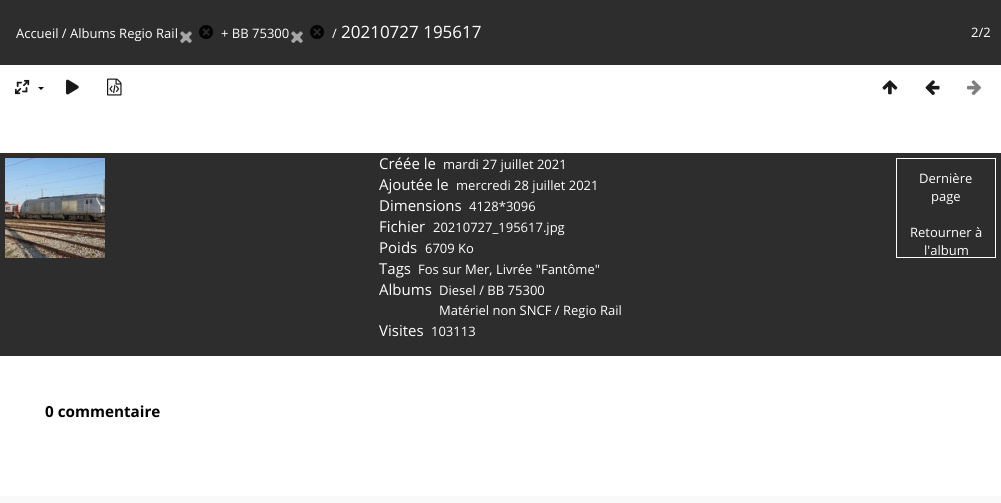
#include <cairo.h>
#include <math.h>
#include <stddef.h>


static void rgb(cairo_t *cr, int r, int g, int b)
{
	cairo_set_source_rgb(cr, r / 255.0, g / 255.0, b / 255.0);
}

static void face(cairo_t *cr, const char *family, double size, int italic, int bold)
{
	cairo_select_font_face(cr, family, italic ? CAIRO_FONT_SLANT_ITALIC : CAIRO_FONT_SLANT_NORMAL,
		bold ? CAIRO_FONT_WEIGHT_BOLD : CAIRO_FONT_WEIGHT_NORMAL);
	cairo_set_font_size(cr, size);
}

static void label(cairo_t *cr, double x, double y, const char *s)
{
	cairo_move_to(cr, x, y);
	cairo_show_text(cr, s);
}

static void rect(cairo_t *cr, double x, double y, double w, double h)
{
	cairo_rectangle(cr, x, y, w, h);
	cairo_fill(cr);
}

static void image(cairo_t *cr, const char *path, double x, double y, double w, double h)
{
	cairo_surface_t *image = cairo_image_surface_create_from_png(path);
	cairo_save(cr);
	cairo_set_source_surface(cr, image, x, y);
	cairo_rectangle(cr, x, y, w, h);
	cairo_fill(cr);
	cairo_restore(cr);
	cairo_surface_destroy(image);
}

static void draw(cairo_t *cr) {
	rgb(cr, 255, 255, 255);
	cairo_paint(cr);
	rgb(cr, 45, 45, 45);
	rect(cr, 0, 0, 1001, 65);
	face(cr, "Open Sans", 13, 0, 0);
	rgb(cr, 255, 255, 255);
	label(cr, 16, 38, "Accueil / Albums Regio Rail");
	image(cr, "image0.png", 180, 31, 12, 13);
	image(cr, "image1.png", 199, 25, 15, 14);
	label(cr, 221, 38, "+ BB 75300");
	image(cr, "image0.png", 291, 31, 12, 13);
	image(cr, "image1.png", 310, 25, 15, 14);
	label(cr, 332, 38, "/");
	face(cr, "Open Sans", 17, 0, 0);
	label(cr, 341, 38, "20210727 195617");
	face(cr, "Open Sans", 13, 0, 0);
	label(cr, 971, 37, "2/2");
	image(cr, "image2.png", 15, 79, 15, 16);
	rgb(cr, 0, 0, 0);
	cairo_new_path(cr);
	cairo_move_to(cr, 38, 87);
	cairo_line_to(cr, 44, 87);
	cairo_line_to(cr, 41, 90);
	cairo_close_path(cr);
	cairo_fill(cr);
	image(cr, "image3.png", 66, 79, 13, 16);
	image(cr, "image4.png", 107, 78, 15, 18);
	image(cr, "image5.png", 882, 80, 16, 15);
	image(cr, "image6.png", 925, 80, 15, 15);
	image(cr, "image7.png", 967, 80, 14, 15);
	rgb(cr, 45, 45, 45);
	rect(cr, 0, 153, 1001, 203);
	face(cr, "Open Sans", 15, 0, 0);
	rgb(cr, 255, 255, 255);
	label(cr, 379, 169, "Créée le");
	face(cr, "Open Sans", 13, 0, 0);
	label(cr, 443, 169, "mardi 27 juillet 2021");
	face(cr, "Open Sans", 15, 0, 0);
	label(cr, 379, 190, "Ajoutée le");
	face(cr, "Open Sans", 13, 0, 0);
	label(cr, 456, 190, "mercredi 28 juillet 2021");
	face(cr, "Open Sans", 15, 0, 0);
	label(cr, 379, 211, "Dimensions");
	face(cr, "Open Sans", 13, 0, 0);
	label(cr, 469, 211, "4128*3096");
	face(cr, "Open Sans", 15, 0, 0);
	label(cr, 379, 232, "Fichier");
	face(cr, "Open Sans", 13, 0, 0);
	label(cr, 433, 232, "20210727_195617.jpg");
	face(cr, "Open Sans", 15, 0, 0);
	label(cr, 379, 253, "Poids");
	face(cr, "Open Sans", 13, 0, 0);
	label(cr, 425, 253, "6709 Ko");
	face(cr, "Open Sans", 15, 0, 0);
	label(cr, 379, 274, "Tags");
	face(cr, "Open Sans", 13, 0, 0);
	label(cr, 418, 274, "Fos sur Mer, Livrée \"Fantôme\"");
	face(cr, "Open Sans", 15, 0, 0);
	label(cr, 379, 295, "Albums");
	face(cr, "Open Sans", 13, 0, 0);
	label(cr, 439, 295, "Diesel / BB 75300");
	label(cr, 439, 315, "Matériel non SNCF / Regio Rail");
	face(cr, "Open Sans", 15, 0, 0);
	label(cr, 379, 336, "Visites");
	face(cr, "Open Sans", 13, 0, 0);
	label(cr, 431, 336, "103113");
	image(cr, "image8.png", 5, 158, 100, 100);
	cairo_rectangle(cr, 896.5, 158.5, 99, 99);
	cairo_set_line_width(cr, 1);
	cairo_stroke(cr);
	label(cr, 919, 183, "Dernière");
	label(cr, 931, 201, "page");
	label(cr, 910, 237, "Retourner à");
	label(cr, 924, 255, "l'album");
	face(cr, "Open Sans", 15.25, 0, 1);
	rgb(cr, 0, 0, 0);
	label(cr, 45, 417, "0 commentaire");
	rgb(cr, 249, 249, 249);
	rect(cr, 0, 496, 1001, 7);
}

int main(void) {
	cairo_surface_t *surface = cairo_image_surface_create(CAIRO_FORMAT_RGB24, 1001, 503);
	cairo_t *cr = cairo_create(surface);
	cairo_font_options_t *options = cairo_font_options_create();
	cairo_font_options_set_hint_metrics(options, CAIRO_HINT_METRICS_OFF);
	cairo_font_options_set_hint_style(options, CAIRO_HINT_STYLE_NONE);
	cairo_set_font_options(cr, options);
	cairo_set_miter_limit(cr, 4);
	draw(cr);
	cairo_surface_write_to_png(surface, "render.png");
	cairo_font_options_destroy(options);
	cairo_destroy(cr);
	cairo_surface_destroy(surface);
	return 0;
}
